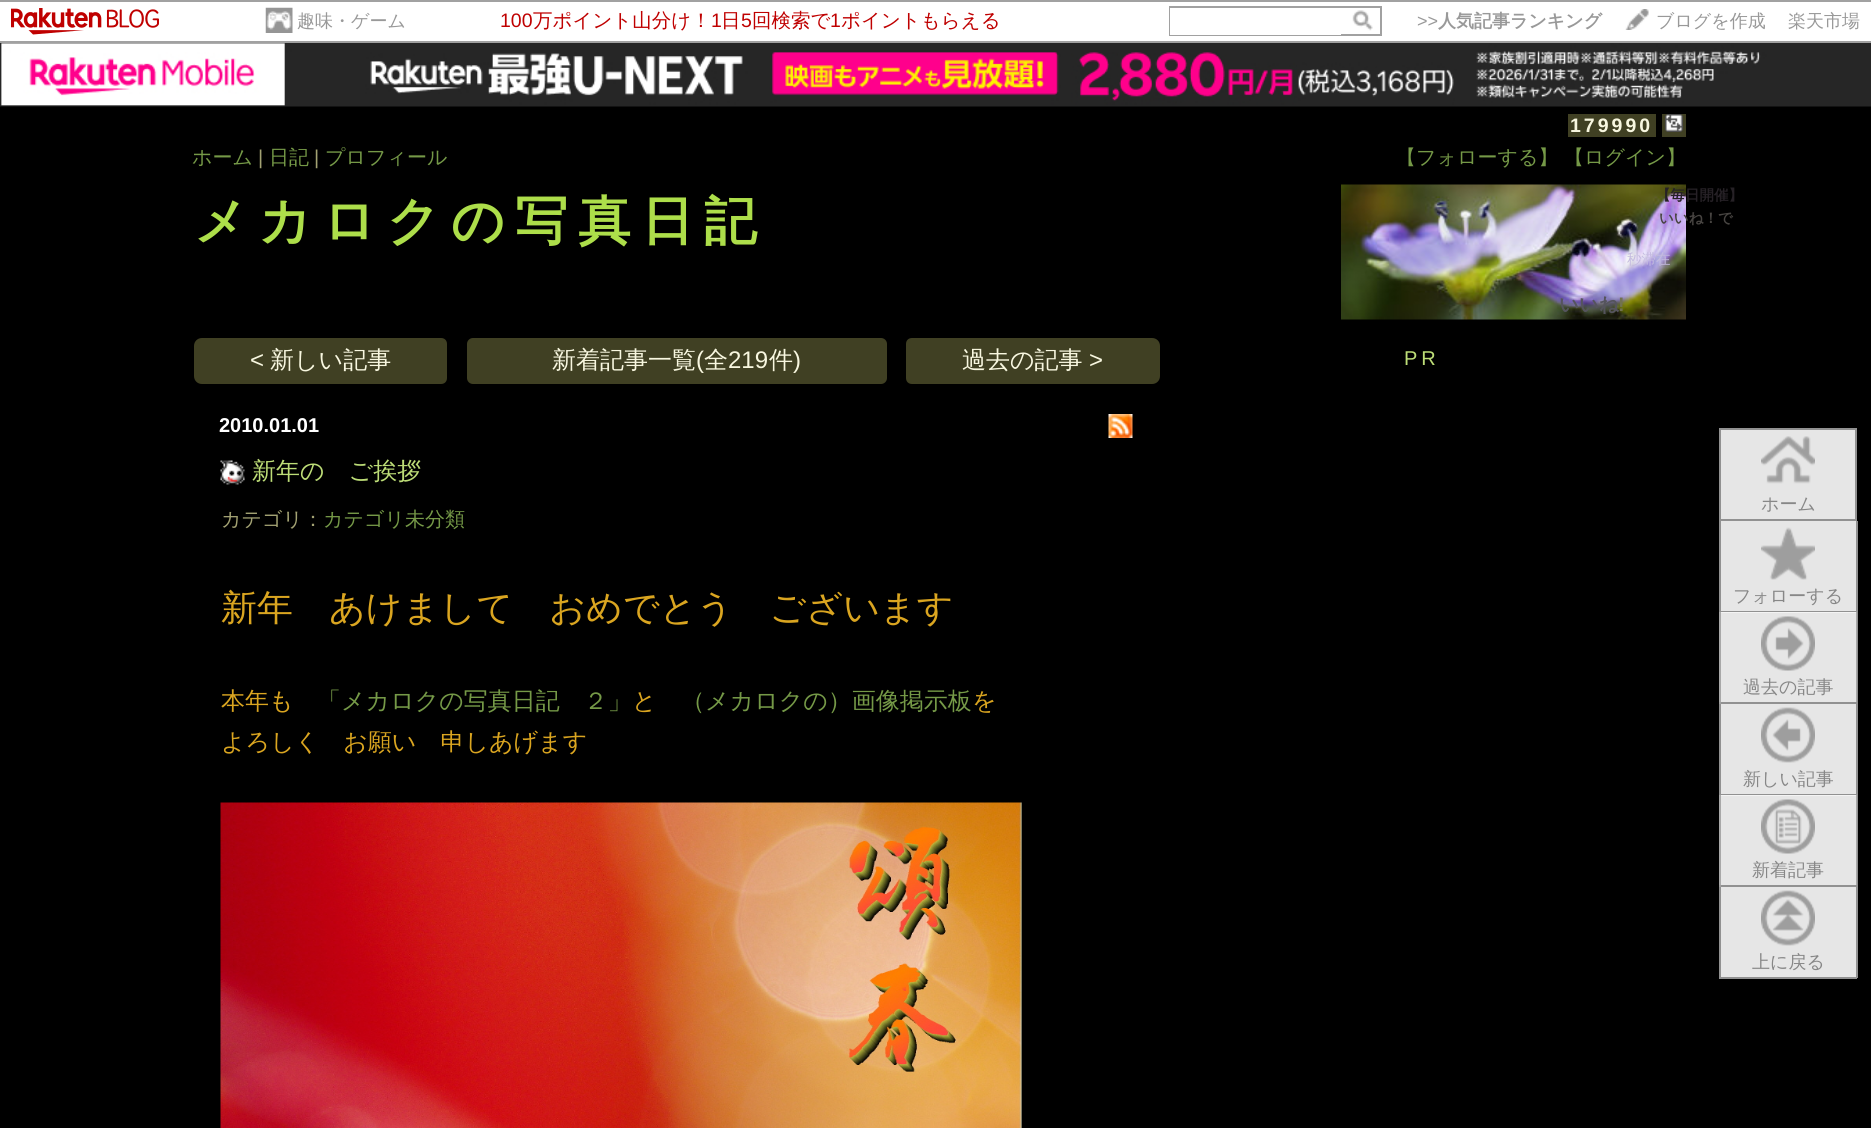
#include <cairo.h>
#include <math.h>
#include <stddef.h>


static void rgb(cairo_t *cr, int r, int g, int b)
{
	cairo_set_source_rgb(cr, r / 255.0, g / 255.0, b / 255.0);
}

static void face(cairo_t *cr, const char *family, double size, int italic, int bold)
{
	cairo_select_font_face(cr, family, italic ? CAIRO_FONT_SLANT_ITALIC : CAIRO_FONT_SLANT_NORMAL,
		bold ? CAIRO_FONT_WEIGHT_BOLD : CAIRO_FONT_WEIGHT_NORMAL);
	cairo_set_font_size(cr, size);
}

static void label(cairo_t *cr, double x, double y, const char *s)
{
	cairo_move_to(cr, x, y);
	cairo_show_text(cr, s);
}

static void tracked(cairo_t *cr, double x, double y, const char *s, double letter, double word)
{
	cairo_move_to(cr, x, y);
	while (*s) {
		char ch[5] = {0};
		int n = 0;
		do ch[n++] = *s++; while ((*s & 0xC0) == 0x80);
		cairo_show_text(cr, ch);
		cairo_rel_move_to(cr, letter + word * (*ch == ' '), 0);
	}
}

static void rect(cairo_t *cr, double x, double y, double w, double h)
{
	cairo_rectangle(cr, x, y, w, h);
	cairo_fill(cr);
}

static void rrect(cairo_t *cr, double x, double y, double w, double h, double r)
{
	cairo_new_sub_path(cr);
	cairo_arc(cr, x + w - r, y + h - r, r, 0, M_PI / 2);
	cairo_arc(cr, x + r, y + h - r, r, M_PI / 2, M_PI);
	cairo_arc(cr, x + r, y + r, r, M_PI, 1.5 * M_PI);
	cairo_arc(cr, x + w - r, y + r, r, 1.5 * M_PI, 2 * M_PI);
	cairo_close_path(cr);
}

static void image(cairo_t *cr, const char *path, double x, double y, double w, double h)
{
	cairo_surface_t *image = cairo_image_surface_create_from_png(path);
	cairo_save(cr);
	cairo_set_source_surface(cr, image, x, y);
	cairo_rectangle(cr, x, y, w, h);
	cairo_fill(cr);
	cairo_restore(cr);
	cairo_surface_destroy(image);
}

static void draw(cairo_t *cr) {
	rgb(cr, 0, 0, 0);
	cairo_paint(cr);
	rgb(cr, 145, 145, 145);
	rect(cr, 1857, 795, 1, 92);
	rgb(cr, 230, 230, 230);
	rect(cr, 1721, 796, 135, 89);
	rgb(cr, 168, 168, 168);
	rect(cr, 1719, 795, 2, 92);
	rect(cr, 1856, 795, 1, 92);
	rgb(cr, 145, 145, 145);
	rect(cr, 1857, 612, 1, 92);
	rgb(cr, 230, 230, 230);
	rect(cr, 1721, 613, 135, 89);
	rgb(cr, 168, 168, 168);
	rect(cr, 1719, 612, 2, 92);
	rect(cr, 1856, 612, 1, 92);
	rgb(cr, 255, 255, 255);
	rect(cr, 0, 2, 1871, 39);
	rgb(cr, 161, 161, 161);
	rect(cr, 0, 0, 1871, 2);
	rect(cr, 0, 41, 1871, 2);
	image(cr, "image0.png", 11, 8, 148, 27);
	image(cr, "image1.png", 265, 7, 28, 26);
	face(cr, "WenQuanYi Zen Hei Medium", 18, 0, 0);
	rgb(cr, 153, 153, 153);
	label(cr, 297, 27, "趣味・ゲーム");
	face(cr, "Liberation Sans", 19.5, 0, 0);
	rgb(cr, 191, 0, 0);
	label(cr, 500, 27, "100");
	face(cr, "WenQuanYi Zen Hei Medium", 19.5, 0, 0);
	label(cr, 533, 27, "万ポイント山分け！");
	face(cr, "Liberation Sans", 19.5, 0, 0);
	label(cr, 711, 27, "1");
	face(cr, "WenQuanYi Zen Hei Medium", 19.5, 0, 0);
	label(cr, 721, 27, "日");
	face(cr, "Liberation Sans", 19.5, 0, 0);
	label(cr, 741, 27, "5");
	face(cr, "WenQuanYi Zen Hei Medium", 19.5, 0, 0);
	label(cr, 752, 27, "回検索で");
	face(cr, "Liberation Sans", 19.5, 0, 0);
	label(cr, 830, 27, "1");
	face(cr, "WenQuanYi Zen Hei Medium", 19.5, 0, 0);
	label(cr, 841, 27, "ポイントもらえる");
	cairo_rectangle(cr, 1170, 7, 211, 28);
	rgb(cr, 161, 161, 161);
	cairo_stroke(cr);
	rgb(cr, 255, 255, 255);
	rect(cr, 1170, 8, 171, 27);
	image(cr, "image2.png", 1352, 10, 21, 21);
	face(cr, "Liberation Sans", 18, 0, 0);
	rgb(cr, 153, 153, 153);
	label(cr, 1417, 27, ">>");
	face(cr, "WenQuanYi Zen Hei", 18, 0, 1);
	label(cr, 1438, 27, "人気記事ランキング");
	image(cr, "image3.png", 1625, 9, 24, 21);
	face(cr, "WenQuanYi Zen Hei Medium", 18, 0, 0);
	label(cr, 1656, 27, "ブログを作成");
	label(cr, 1788, 27, "楽天市場");
	image(cr, "image4.png", 0, 43, 1871, 64);
	rgb(cr, 64, 64, 35);
	rect(cr, 1662, 114, 24, 23);
	rect(cr, 1568, 114, 88, 23);
	face(cr, "Liberation Sans", 19.5, 0, 1);
	rgb(cr, 248, 247, 224);
	tracked(cr, 1570, 132, "179990", 3, 0);
	image(cr, "image5.png", 1665, 114, 18, 18);
	face(cr, "WenQuanYi Zen Hei Medium", 20, 0, 0);
	rgb(cr, 117, 153, 71);
	label(cr, 192, 164, "ホーム");
	face(cr, "Liberation Sans", 20, 0, 0);
	rgb(cr, 163, 162, 115);
	label(cr, 258, 164, "|");
	face(cr, "WenQuanYi Zen Hei Medium", 20, 0, 0);
	rgb(cr, 117, 153, 71);
	label(cr, 269, 164, "日記");
	face(cr, "Liberation Sans", 20, 0, 0);
	rgb(cr, 163, 162, 115);
	label(cr, 314, 164, "|");
	face(cr, "WenQuanYi Zen Hei Medium", 20, 0, 0);
	rgb(cr, 117, 153, 71);
	label(cr, 325, 164, "プロフィール");
	label(cr, 1396, 164, "【フォローする】");
	label(cr, 1564, 164, "【ログイン】");
	face(cr, "WenQuanYi Zen Hei", 52.5, 0, 1);
	rgb(cr, 173, 222, 74);
	tracked(cr, 194, 239, "メカロクの写真日記", 10.5, 0);
	image(cr, "image6.png", 1341, 184, 345, 136);
	face(cr, "WenQuanYi Zen Hei", 14.5, 0, 1);
	rgb(cr, 38, 33, 38);
	label(cr, 1656, 200, "【毎日開催】");
	rgb(cr, 71, 68, 65);
	label(cr, 1659, 223, "いいね！で");
	face(cr, "WenQuanYi Zen Hei Medium", 14.5, 0, 0);
	rgb(cr, 196, 187, 223);
	label(cr, 1627, 264, "秒滞在");
	face(cr, "WenQuanYi Zen Hei", 19.5, 0, 1);
	rgb(cr, 85, 84, 93);
	label(cr, 1559, 311, "いいね");
	face(cr, "Liberation Sans", 19.5, 0, 1);
	rgb(cr, 114, 114, 80);
	label(cr, 1618, 311, "!");
	rgb(cr, 64, 64, 35);
	cairo_new_path(cr);
	cairo_move_to(cr, 202, 339);
	cairo_line_to(cr, 441, 339);
	cairo_curve_to(cr, 444, 339, 446, 341, 446, 344);
	cairo_line_to(cr, 446, 378);
	cairo_curve_to(cr, 446, 381, 444, 383, 441, 383);
	cairo_line_to(cr, 202, 383);
	cairo_curve_to(cr, 198, 383, 195, 380, 195, 376);
	cairo_line_to(cr, 195, 346);
	cairo_curve_to(cr, 195, 342, 198, 339, 202, 339);
	cairo_close_path(cr);
	cairo_fill_preserve(cr);
	cairo_stroke(cr);
	face(cr, "Liberation Sans", 24, 0, 0);
	rgb(cr, 248, 247, 224);
	label(cr, 250, 368, "<");
	face(cr, "WenQuanYi Zen Hei Medium", 24, 0, 0);
	label(cr, 270, 368, "新しい記事");
	rgb(cr, 64, 64, 35);
	rrect(cr, 468, 339, 418, 44, 5);
	cairo_fill_preserve(cr);
	cairo_stroke(cr);
	rgb(cr, 248, 247, 224);
	label(cr, 552, 368, "新着記事一覧");
	face(cr, "Liberation Sans", 24, 0, 0);
	label(cr, 696, 368, "(");
	face(cr, "WenQuanYi Zen Hei Medium", 24, 0, 0);
	label(cr, 704, 368, "全");
	face(cr, "Liberation Sans", 24, 0, 0);
	label(cr, 728, 368, "219");
	face(cr, "WenQuanYi Zen Hei Medium", 24, 0, 0);
	label(cr, 769, 368, "件");
	face(cr, "Liberation Sans", 24, 0, 0);
	label(cr, 793, 368, ")");
	rgb(cr, 64, 64, 35);
	cairo_new_path(cr);
	cairo_move_to(cr, 912, 339);
	cairo_line_to(cr, 1152, 339);
	cairo_curve_to(cr, 1156, 339, 1159, 342, 1159, 346);
	cairo_line_to(cr, 1159, 376);
	cairo_curve_to(cr, 1159, 380, 1156, 383, 1152, 383);
	cairo_line_to(cr, 912, 383);
	cairo_curve_to(cr, 909, 383, 907, 381, 907, 378);
	cairo_line_to(cr, 907, 344);
	cairo_curve_to(cr, 907, 341, 909, 339, 912, 339);
	cairo_close_path(cr);
	cairo_fill_preserve(cr);
	cairo_stroke(cr);
	face(cr, "WenQuanYi Zen Hei Medium", 24, 0, 0);
	rgb(cr, 248, 247, 224);
	label(cr, 962, 368, "過去の記事");
	face(cr, "Liberation Sans", 24, 0, 0);
	label(cr, 1089, 368, ">");
	face(cr, "Liberation Sans", 20, 0, 1);
	rgb(cr, 255, 255, 255);
	label(cr, 219, 432, "2010.01.01");
	image(cr, "image7.png", 1108, 414, 25, 24);
	image(cr, "image8.png", 220, 460, 25, 25);
	face(cr, "WenQuanYi Zen Hei Medium", 24, 0, 0);
	rgb(cr, 189, 221, 119);
	label(cr, 252, 479, "新年の　ご挨拶");
	face(cr, "WenQuanYi Zen Hei Medium", 20, 0, 0);
	rgb(cr, 163, 162, 115);
	label(cr, 221, 526, "カテゴリ：");
	rgb(cr, 117, 153, 71);
	label(cr, 323, 526, "カテゴリ未分類");
	face(cr, "WenQuanYi Zen Hei Medium", 36, 0, 0);
	rgb(cr, 218, 165, 32);
	label(cr, 221, 620, "新年　あけまして　おめでとう　ございます");
	face(cr, "WenQuanYi Zen Hei Medium", 24, 0, 0);
	label(cr, 221, 709, "本年も");
	rgb(cr, 117, 153, 71);
	label(cr, 317, 709, "「メカロクの写真日記　２」");
	rgb(cr, 218, 165, 32);
	label(cr, 632, 709, "と");
	rgb(cr, 117, 153, 71);
	label(cr, 681, 709, "（メカロクの）画像掲示板");
	rgb(cr, 218, 165, 32);
	label(cr, 972, 709, "を");
	label(cr, 221, 750, "よろしく　お願い　申しあげます");
	image(cr, "image9.png", 220, 802, 802, 326);
	face(cr, "Liberation Sans", 20, 0, 0);
	rgb(cr, 189, 221, 119);
	tracked(cr, 1404, 365, "PR", 4, 0);
	rgb(cr, 230, 230, 230);
	cairo_rectangle(cr, 1720, 429, 136, 91);
	cairo_fill_preserve(cr);
	rgb(cr, 145, 145, 145);
	cairo_stroke(cr);
	image(cr, "image10.png", 1761, 436, 54, 48);
	face(cr, "WenQuanYi Zen Hei Medium", 18, 0, 0);
	rgb(cr, 135, 135, 135);
	label(cr, 1761, 510, "ホーム");
	rgb(cr, 230, 230, 230);
	rect(cr, 1721, 521, 135, 90);
	rgb(cr, 145, 145, 145);
	rect(cr, 1856, 521, 2, 91);
	rect(cr, 1719, 611, 138, 1);
	rgb(cr, 244, 244, 244);
	rect(cr, 1719, 612, 138, 1);
	rgb(cr, 169, 169, 169);
	rect(cr, 1719, 612, 2, 1);
	rect(cr, 1856, 612, 1, 1);
	rgb(cr, 145, 145, 145);
	rect(cr, 1719, 521, 2, 91);
	image(cr, "image11.png", 1761, 527, 54, 53);
	rgb(cr, 135, 135, 135);
	label(cr, 1733, 602, "フォローする");
	rgb(cr, 145, 145, 145);
	rect(cr, 1719, 702, 138, 2);
	rgb(cr, 159, 159, 159);
	rect(cr, 1719, 702, 2, 2);
	image(cr, "image12.png", 1761, 616, 54, 55);
	rgb(cr, 135, 135, 135);
	label(cr, 1743, 693, "過去の記事");
	rgb(cr, 230, 230, 230);
	rect(cr, 1721, 704, 135, 90);
	rgb(cr, 145, 145, 145);
	rect(cr, 1856, 704, 2, 91);
	rect(cr, 1719, 794, 138, 1);
	rgb(cr, 244, 244, 244);
	rect(cr, 1719, 795, 138, 1);
	rgb(cr, 169, 169, 169);
	rect(cr, 1719, 795, 2, 1);
	rect(cr, 1856, 795, 1, 1);
	rgb(cr, 145, 145, 145);
	rect(cr, 1719, 704, 2, 91);
	image(cr, "image13.png", 1761, 707, 54, 56);
	rgb(cr, 135, 135, 135);
	label(cr, 1743, 785, "新しい記事");
	rgb(cr, 145, 145, 145);
	rect(cr, 1719, 885, 138, 2);
	rgb(cr, 159, 159, 159);
	rect(cr, 1719, 885, 2, 2);
	image(cr, "image14.png", 1761, 799, 54, 55);
	rgb(cr, 135, 135, 135);
	label(cr, 1752, 876, "新着記事");
	rgb(cr, 230, 230, 230);
	rect(cr, 1721, 887, 135, 90);
	rgb(cr, 145, 145, 145);
	rect(cr, 1856, 887, 2, 91);
	rect(cr, 1719, 977, 138, 2);
	rect(cr, 1719, 887, 2, 91);
	image(cr, "image15.png", 1761, 890, 54, 56);
	rgb(cr, 135, 135, 135);
	label(cr, 1752, 968, "上に戻る");
}

int main(void) {
	cairo_surface_t *surface = cairo_image_surface_create(CAIRO_FORMAT_RGB24, 1871, 1128);
	cairo_t *cr = cairo_create(surface);
	cairo_font_options_t *options = cairo_font_options_create();
	cairo_font_options_set_hint_metrics(options, CAIRO_HINT_METRICS_OFF);
	cairo_font_options_set_hint_style(options, CAIRO_HINT_STYLE_NONE);
	cairo_set_font_options(cr, options);
	cairo_set_miter_limit(cr, 4);
	draw(cr);
	cairo_surface_write_to_png(surface, "render.png");
	cairo_font_options_destroy(options);
	cairo_destroy(cr);
	cairo_surface_destroy(surface);
	return 0;
}
